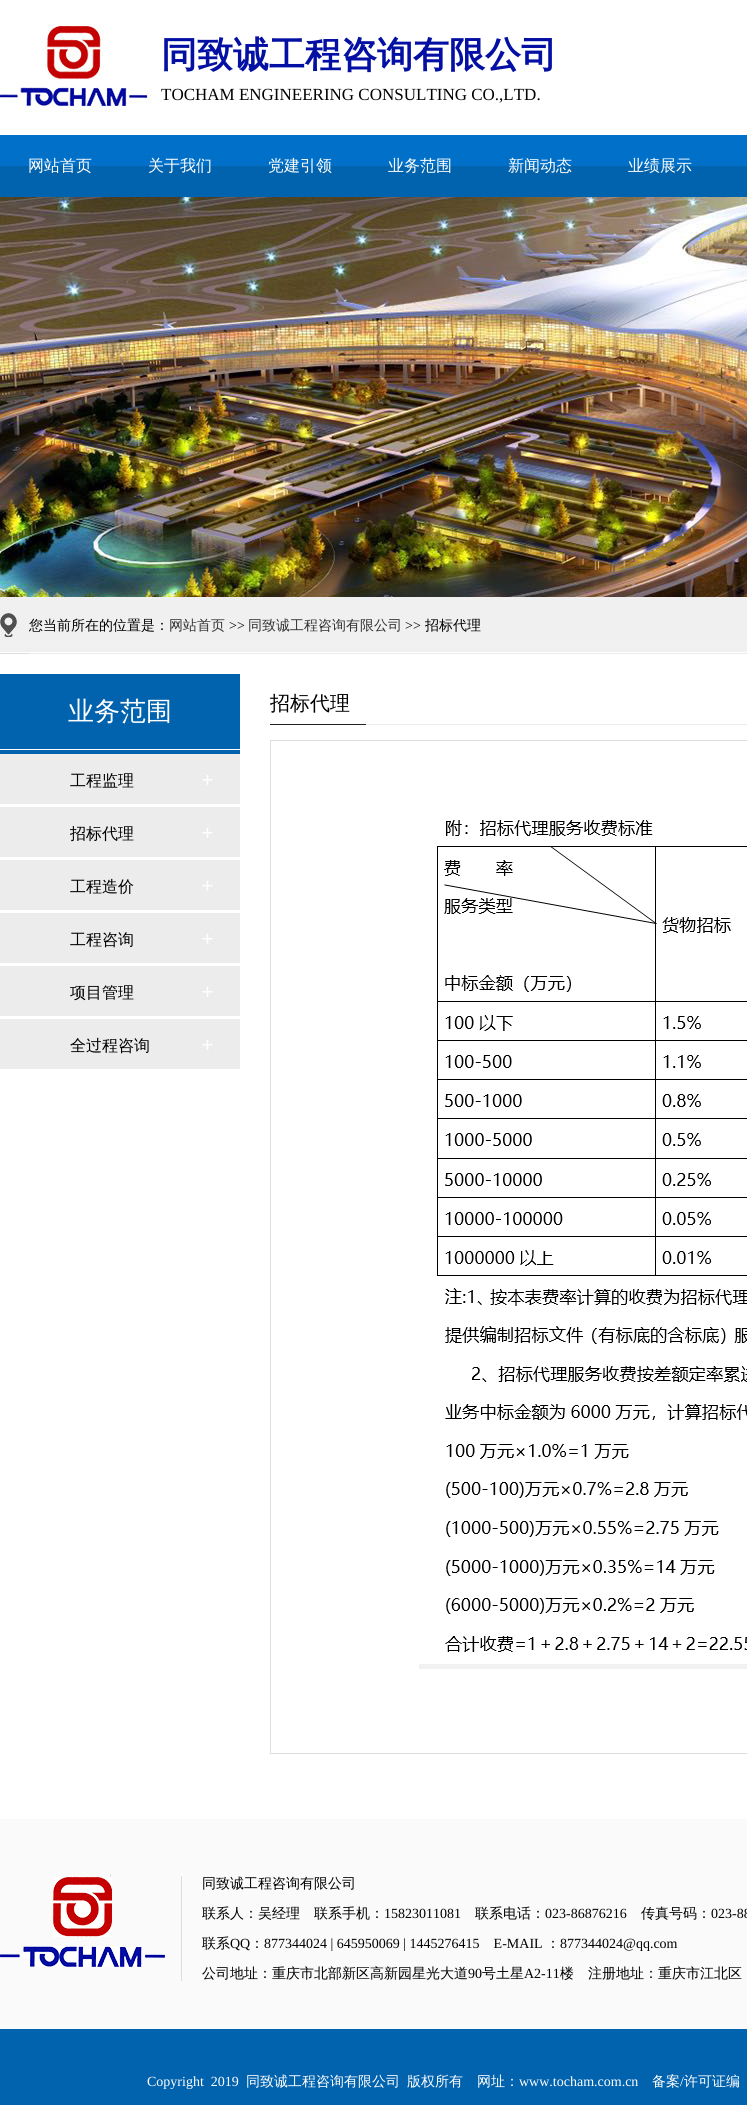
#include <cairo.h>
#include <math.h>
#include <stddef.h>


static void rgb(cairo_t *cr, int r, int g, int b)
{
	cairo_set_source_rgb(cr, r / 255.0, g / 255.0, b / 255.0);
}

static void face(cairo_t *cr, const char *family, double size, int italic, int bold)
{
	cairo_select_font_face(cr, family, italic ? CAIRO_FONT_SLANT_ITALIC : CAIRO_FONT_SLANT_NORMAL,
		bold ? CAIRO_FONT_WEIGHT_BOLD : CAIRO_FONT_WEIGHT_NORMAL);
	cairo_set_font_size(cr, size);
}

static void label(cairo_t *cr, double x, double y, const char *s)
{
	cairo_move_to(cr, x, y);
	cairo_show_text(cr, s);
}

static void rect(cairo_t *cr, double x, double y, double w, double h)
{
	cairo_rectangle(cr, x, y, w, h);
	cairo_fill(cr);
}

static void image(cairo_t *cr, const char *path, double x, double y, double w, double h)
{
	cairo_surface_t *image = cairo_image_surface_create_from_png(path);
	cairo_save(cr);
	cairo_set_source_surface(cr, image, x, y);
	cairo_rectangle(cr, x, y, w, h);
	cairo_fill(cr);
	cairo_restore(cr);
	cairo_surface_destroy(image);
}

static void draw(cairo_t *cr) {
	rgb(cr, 255, 255, 255);
	cairo_paint(cr);
	image(cr, "image0.png", 0, 24, 152, 88);
	face(cr, "WenQuanYi Zen Hei", 36, 0, 1);
	rgb(cr, 4, 15, 163);
	label(cr, 161, 67, "同致诚工程咨询有限公司");
	face(cr, "Liberation Serif", 17, 0, 0);
	rgb(cr, 0, 0, 0);
	label(cr, 161, 100, "TOCHAM ENGINEERING CONSULTING CO.,LTD.");
	image(cr, "image1.png", 0, 135, 747, 62);
	face(cr, "WenQuanYi Zen Hei Medium", 16, 0, 0);
	rgb(cr, 255, 255, 255);
	label(cr, 28, 171, "网站首页");
	label(cr, 148, 171, "关于我们");
	label(cr, 268, 171, "党建引领");
	label(cr, 388, 171, "业务范围");
	label(cr, 508, 171, "新闻动态");
	label(cr, 628, 171, "业绩展示");
	image(cr, "image2.png", 0, 197, 747, 400);
	image(cr, "image3.png", 0, 597, 747, 57);
	image(cr, "image4.png", 0, 613, 29, 41);
	face(cr, "WenQuanYi Zen Hei Medium", 14, 0, 0);
	rgb(cr, 0, 0, 0);
	label(cr, 29, 630, "您当前所在的位置是：");
	rgb(cr, 51, 51, 51);
	label(cr, 169, 630, "网站首页");
	face(cr, "Liberation Serif", 14, 0, 0);
	rgb(cr, 0, 0, 0);
	label(cr, 229, 630, ">>");
	face(cr, "WenQuanYi Zen Hei Medium", 14, 0, 0);
	rgb(cr, 51, 51, 51);
	label(cr, 248, 630, "同致诚工程咨询有限公司");
	face(cr, "Liberation Serif", 14, 0, 0);
	rgb(cr, 0, 0, 0);
	label(cr, 405, 630, ">>");
	face(cr, "WenQuanYi Zen Hei Medium", 14, 0, 0);
	label(cr, 425, 630, "招标代理");
	rgb(cr, 1, 98, 174);
	rect(cr, 0, 674, 240, 75);
	face(cr, "WenQuanYi Zen Hei Medium", 26, 0, 0);
	rgb(cr, 255, 255, 255);
	label(cr, 68, 720, "业务范围");
	rgb(cr, 3, 98, 174);
	rect(cr, 0, 750, 240, 4);
	image(cr, "image5.png", 0, 754, 240, 315);
	face(cr, "WenQuanYi Zen Hei Medium", 16, 0, 0);
	rgb(cr, 0, 0, 0);
	label(cr, 70, 786, "工程监理");
	label(cr, 70, 839, "招标代理");
	label(cr, 70, 892, "工程造价");
	label(cr, 70, 945, "工程咨询");
	label(cr, 70, 998, "项目管理");
	label(cr, 70, 1051, "全过程咨询");
	face(cr, "WenQuanYi Zen Hei Medium", 20, 0, 0);
	label(cr, 270, 710, "招标代理");
	image(cr, "image6.png", 270, 724, 477, 1);
	rgb(cr, 222, 222, 222);
	rect(cr, 270, 740, 477, 1);
	rect(cr, 270, 741, 1, 1012);
	image(cr, "image7.png", 419, 820, 328, 849);
	rect(cr, 270, 1753, 477, 1);
	rgb(cr, 250, 250, 250);
	rect(cr, 0, 1819, 747, 210);
	image(cr, "image8.png", 0, 1874, 168, 97);
	image(cr, "image9.png", 181, 1869, 1, 112);
	face(cr, "WenQuanYi Zen Hei Medium", 14, 0, 0);
	rgb(cr, 0, 0, 0);
	label(cr, 202, 1888, "同致诚工程咨询有限公司");
	label(cr, 202, 1918, "联系人：吴经理");
	label(cr, 314, 1918, "联系手机：");
	face(cr, "Liberation Serif", 14, 0, 0);
	label(cr, 384, 1918, "15823011081");
	face(cr, "WenQuanYi Zen Hei Medium", 14, 0, 0);
	label(cr, 475, 1918, "联系电话：");
	face(cr, "Liberation Serif", 14, 0, 0);
	label(cr, 545, 1918, "023-86876216");
	face(cr, "WenQuanYi Zen Hei Medium", 14, 0, 0);
	label(cr, 641, 1918, "传真号码：");
	face(cr, "Liberation Serif", 14, 0, 0);
	label(cr, 711, 1918, "023-88");
	face(cr, "WenQuanYi Zen Hei Medium", 14, 0, 0);
	label(cr, 202, 1948, "联系");
	face(cr, "Liberation Serif", 14, 0, 0);
	label(cr, 230, 1948, "QQ");
	face(cr, "WenQuanYi Zen Hei Medium", 14, 0, 0);
	label(cr, 250, 1948, "：");
	face(cr, "Liberation Serif", 14, 0, 0);
	label(cr, 264, 1948, "877344024 | 645950069 | 1445276415    E-MAIL");
	face(cr, "WenQuanYi Zen Hei Medium", 14, 0, 0);
	label(cr, 546, 1948, "：");
	face(cr, "Liberation Serif", 14, 0, 0);
	label(cr, 560, 1948, "877344024@qq.com");
	face(cr, "WenQuanYi Zen Hei Medium", 14, 0, 0);
	label(cr, 202, 1978, "公司地址：重庆市北部新区高新园星光大道");
	face(cr, "Liberation Serif", 14, 0, 0);
	label(cr, 468, 1978, "90");
	face(cr, "WenQuanYi Zen Hei Medium", 14, 0, 0);
	label(cr, 482, 1978, "号土星");
	face(cr, "Liberation Serif", 14, 0, 0);
	label(cr, 524, 1978, "A2-11");
	face(cr, "WenQuanYi Zen Hei Medium", 14, 0, 0);
	label(cr, 560, 1978, "楼");
	label(cr, 588, 1978, "注册地址：重庆市江北区");
	rgb(cr, 1, 98, 174);
	rect(cr, 0, 2029, 747, 76);
	face(cr, "Liberation Serif", 14, 0, 0);
	rgb(cr, 255, 255, 255);
	label(cr, 147, 2086, "Copyright  2019");
	face(cr, "WenQuanYi Zen Hei Medium", 14, 0, 0);
	label(cr, 246, 2086, "同致诚工程咨询有限公司");
	label(cr, 407, 2086, "版权所有");
	label(cr, 477, 2086, "网址：");
	face(cr, "Liberation Serif", 14, 0, 0);
	label(cr, 519, 2086, "www.tocham.com.cn");
	face(cr, "WenQuanYi Zen Hei Medium", 14, 0, 0);
	label(cr, 652, 2086, "备案");
	face(cr, "Liberation Serif", 14, 0, 0);
	label(cr, 680, 2086, "/");
	face(cr, "WenQuanYi Zen Hei Medium", 14, 0, 0);
	label(cr, 684, 2086, "许可证编");
}

int main(void) {
	cairo_surface_t *surface = cairo_image_surface_create(CAIRO_FORMAT_RGB24, 747, 2105);
	cairo_t *cr = cairo_create(surface);
	cairo_font_options_t *options = cairo_font_options_create();
	cairo_font_options_set_hint_metrics(options, CAIRO_HINT_METRICS_OFF);
	cairo_font_options_set_hint_style(options, CAIRO_HINT_STYLE_NONE);
	cairo_set_font_options(cr, options);
	cairo_set_miter_limit(cr, 4);
	draw(cr);
	cairo_surface_write_to_png(surface, "render.png");
	cairo_font_options_destroy(options);
	cairo_destroy(cr);
	cairo_surface_destroy(surface);
	return 0;
}
